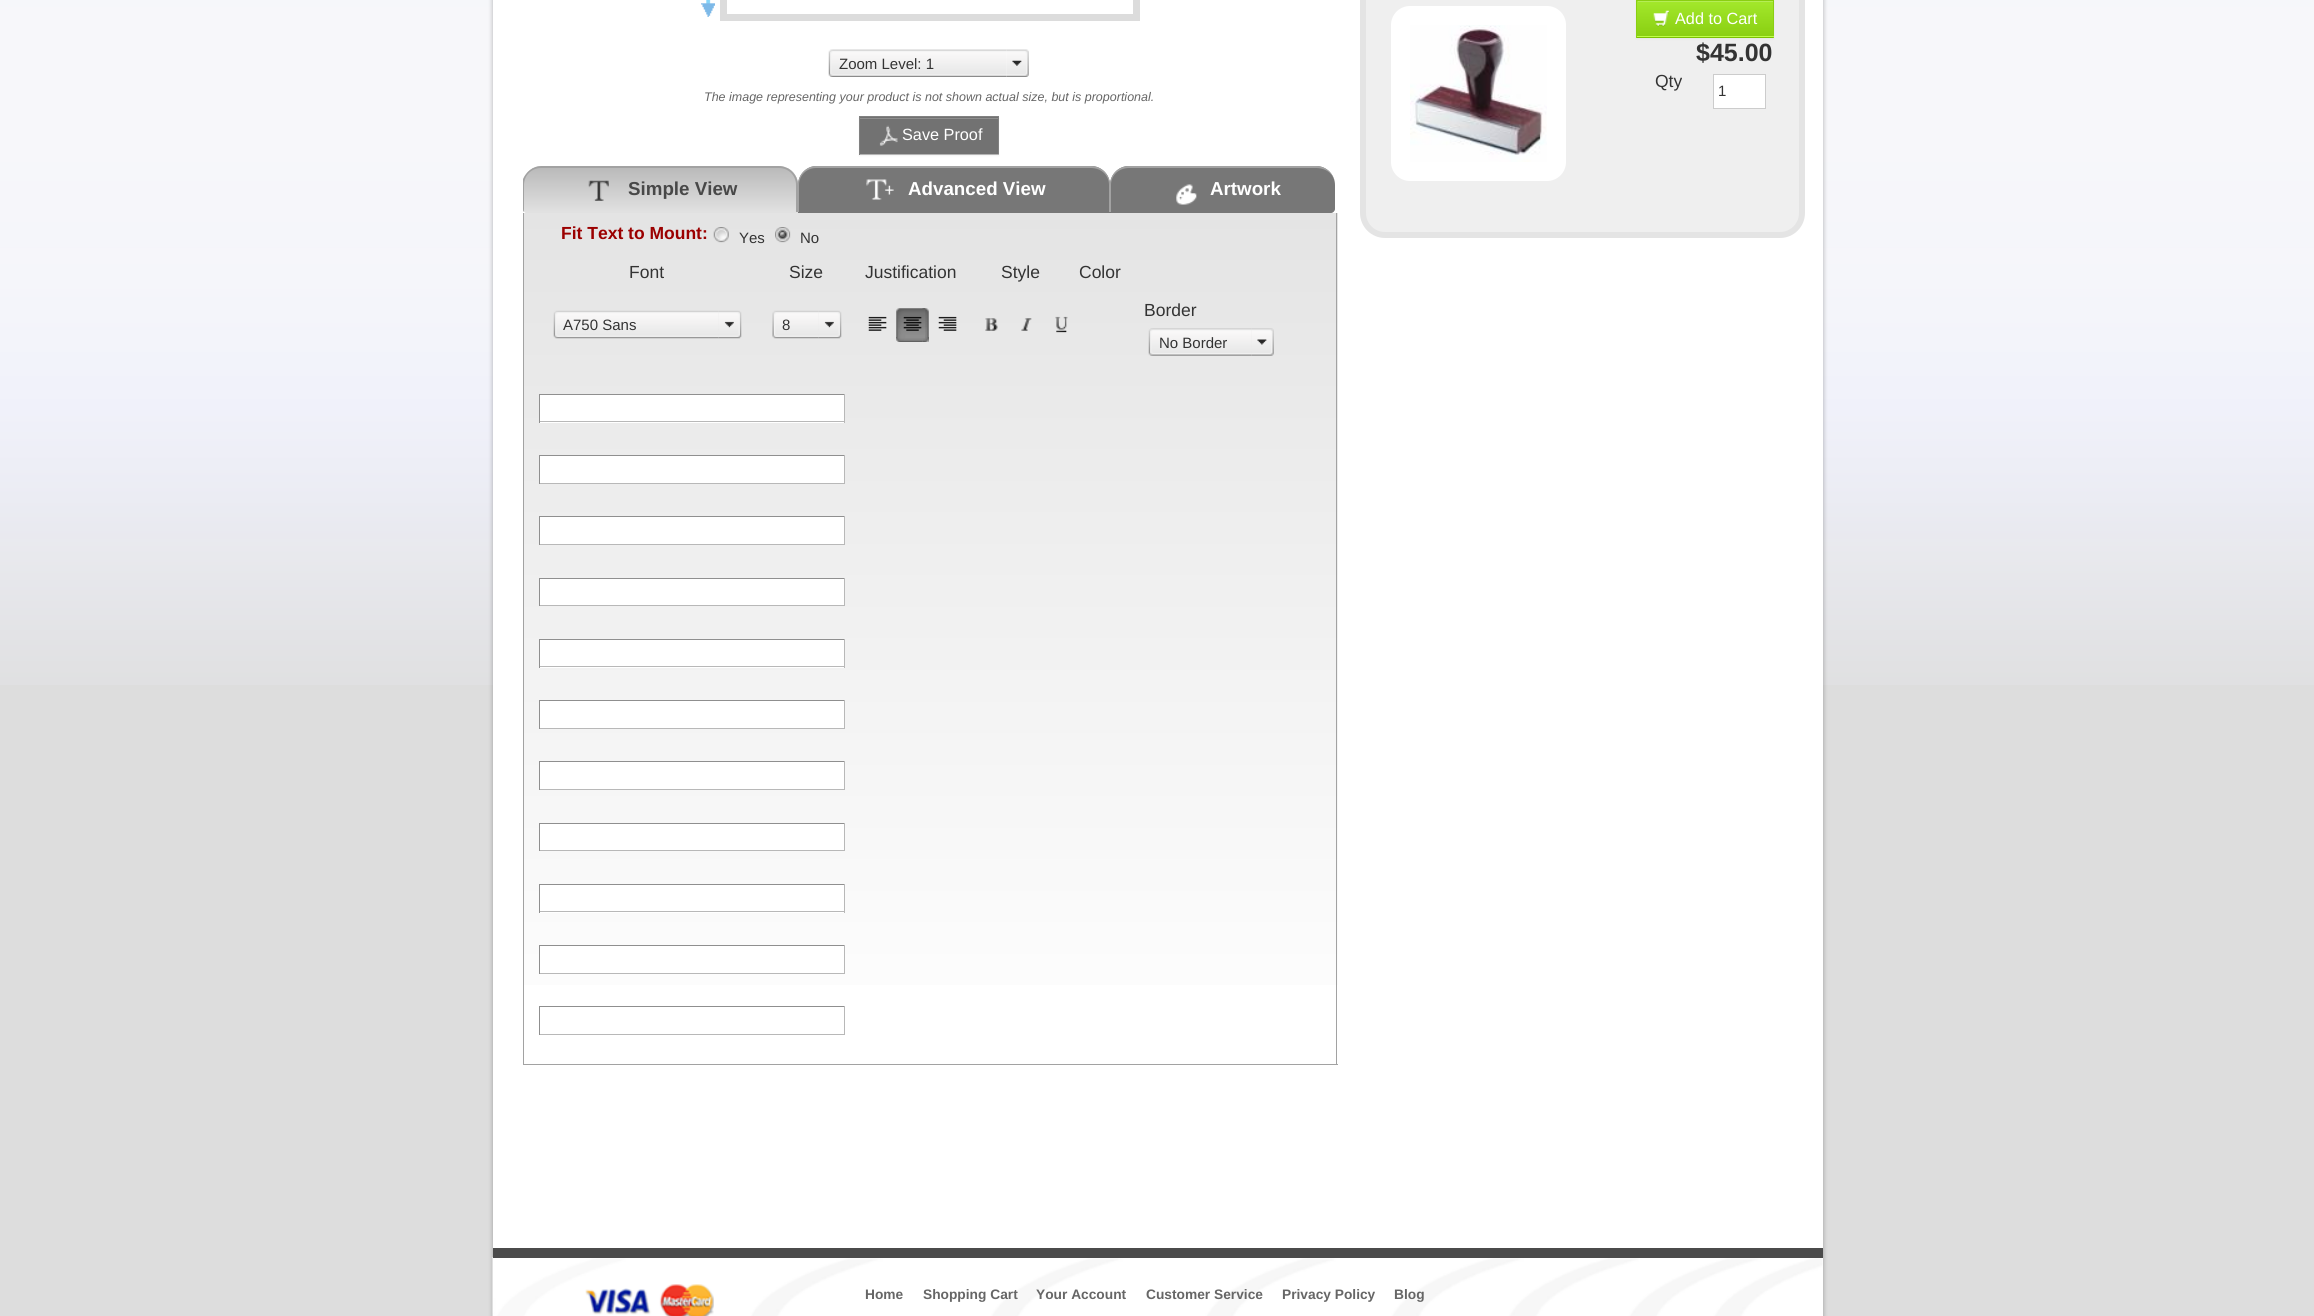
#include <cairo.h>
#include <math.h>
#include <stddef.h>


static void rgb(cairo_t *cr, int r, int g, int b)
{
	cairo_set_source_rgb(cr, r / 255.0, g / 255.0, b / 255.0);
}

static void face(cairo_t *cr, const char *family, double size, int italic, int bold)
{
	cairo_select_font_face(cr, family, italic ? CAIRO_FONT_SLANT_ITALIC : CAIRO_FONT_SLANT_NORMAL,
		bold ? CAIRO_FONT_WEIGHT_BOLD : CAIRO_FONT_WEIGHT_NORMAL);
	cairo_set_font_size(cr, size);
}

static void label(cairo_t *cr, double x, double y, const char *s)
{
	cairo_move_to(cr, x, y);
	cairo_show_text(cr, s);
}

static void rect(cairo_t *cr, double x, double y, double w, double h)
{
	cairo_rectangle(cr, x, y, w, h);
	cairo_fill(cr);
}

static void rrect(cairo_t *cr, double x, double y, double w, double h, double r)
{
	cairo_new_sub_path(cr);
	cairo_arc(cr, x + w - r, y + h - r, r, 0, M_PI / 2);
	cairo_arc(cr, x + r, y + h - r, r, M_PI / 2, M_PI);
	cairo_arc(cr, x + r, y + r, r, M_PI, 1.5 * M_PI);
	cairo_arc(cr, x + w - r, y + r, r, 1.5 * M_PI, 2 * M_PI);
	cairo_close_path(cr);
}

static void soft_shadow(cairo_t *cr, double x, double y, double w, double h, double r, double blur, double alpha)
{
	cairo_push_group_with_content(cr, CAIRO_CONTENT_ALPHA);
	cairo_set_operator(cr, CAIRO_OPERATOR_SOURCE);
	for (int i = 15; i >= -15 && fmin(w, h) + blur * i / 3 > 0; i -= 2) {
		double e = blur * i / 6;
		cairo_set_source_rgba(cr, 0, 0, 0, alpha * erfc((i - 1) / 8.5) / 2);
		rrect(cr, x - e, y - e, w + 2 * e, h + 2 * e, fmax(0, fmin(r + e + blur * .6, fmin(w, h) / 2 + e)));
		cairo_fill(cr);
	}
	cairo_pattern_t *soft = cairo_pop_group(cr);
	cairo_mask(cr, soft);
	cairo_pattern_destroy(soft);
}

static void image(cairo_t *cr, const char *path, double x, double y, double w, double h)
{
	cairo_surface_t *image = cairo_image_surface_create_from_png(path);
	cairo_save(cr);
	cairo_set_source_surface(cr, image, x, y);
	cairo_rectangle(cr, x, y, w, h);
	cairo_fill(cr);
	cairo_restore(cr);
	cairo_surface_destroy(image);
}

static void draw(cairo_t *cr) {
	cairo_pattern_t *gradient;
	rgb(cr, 221, 221, 221);
	cairo_paint(cr);
	image(cr, "image0.png", 0, 0, 2314, 685);
	rgb(cr, 0, 0, 0);
	soft_shadow(cr, 493, -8, 1330, 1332, 0, 2.5, 0.3);
	rgb(cr, 255, 255, 255);
	rect(cr, 493, 0, 1330, 1316);
	image(cr, "image1.png", 701, 0, 14, 17);
	rgb(cr, 220, 220, 220);
	rect(cr, 720, 0, 420, 21);
	rgb(cr, 255, 255, 255);
	rect(cr, 727, 0, 406, 14);
	image(cr, "image2.png", 828, 49, 179, 28);
	face(cr, "Liberation Sans", 15, 0, 0);
	rgb(cr, 51, 51, 51);
	label(cr, 839, 69, "Zoom Level: 1");
	image(cr, "image3.png", 1006, 49, 23, 28);
	face(cr, "Liberation Sans", 12.5, 1, 0);
	rgb(cr, 102, 102, 102);
	label(cr, 704, 101, "The image representing your product is not shown actual size, but is proportional.");
	rgb(cr, 0, 0, 0);
	soft_shadow(cr, 859, 118, 140, 38, 0, 1, 0.05);
	rgb(cr, 114, 114, 114);
	rect(cr, 860, 117, 138, 37);
	rgb(cr, 142, 142, 142);
	rect(cr, 860, 118, 138, 1);
	rgb(cr, 129, 129, 129);
	rect(cr, 859, 116, 140, 1);
	rect(cr, 998, 116, 1, 39);
	rgb(cr, 180, 180, 180);
	rect(cr, 859, 154, 140, 1);
	rgb(cr, 129, 129, 129);
	rect(cr, 859, 116, 1, 39);
	image(cr, "image4.png", 879, 125, 19, 21);
	face(cr, "Liberation Sans", 16.25, 0, 0);
	rgb(cr, 255, 255, 255);
	label(cr, 902, 140, "Save Proof");
	cairo_save(cr);
	rrect(cr, 523, 166, 812, 47, 4);
	cairo_clip(cr);
	rgb(cr, 220, 220, 220);
	cairo_new_path(cr);
	cairo_move_to(cr, 542, 166);
	cairo_line_to(cr, 779, 166);
	cairo_curve_to(cr, 789.5, 166, 798, 174.5, 798, 185);
	cairo_line_to(cr, 798, 213);
	cairo_line_to(cr, 527, 213);
	cairo_curve_to(cr, 525, 213, 523, 211, 523, 209);
	cairo_line_to(cr, 523, 185);
	cairo_curve_to(cr, 523, 174.5, 531.5, 166, 542, 166);
	cairo_close_path(cr);
	cairo_fill(cr);
	cairo_restore(cr);
	cairo_save(cr);
	rrect(cr, 523, 166, 812, 47, 4);
	cairo_clip(cr);
	cairo_new_path(cr);
	cairo_move_to(cr, 542, 166);
	cairo_line_to(cr, 779, 166);
	cairo_curve_to(cr, 789.5, 166, 798, 174.5, 798, 185);
	cairo_line_to(cr, 798, 213);
	cairo_line_to(cr, 523, 213);
	cairo_line_to(cr, 523, 185);
	cairo_curve_to(cr, 523, 174.5, 531.5, 166, 542, 166);
	cairo_close_path(cr);
	cairo_clip(cr);
	gradient = cairo_pattern_create_linear(660, 168, 660, 213);
	cairo_pattern_add_color_stop_rgba(gradient, 0, 0.729, 0.729, 0.729, 1);
	cairo_pattern_add_color_stop_rgba(gradient, 1, 0.886, 0.886, 0.886, 1);
	cairo_set_source(cr, gradient);
	cairo_pattern_destroy(gradient);
	cairo_new_path(cr);
	cairo_move_to(cr, 523, 168);
	cairo_line_to(cr, 798, 168);
	cairo_line_to(cr, 798, 213);
	cairo_line_to(cr, 527, 213);
	cairo_curve_to(cr, 525, 213, 523, 211, 523, 209);
	cairo_close_path(cr);
	cairo_fill(cr);
	cairo_restore(cr);
	rgb(cr, 162, 162, 162);
	cairo_new_path(cr);
	cairo_move_to(cr, 541, 166);
	cairo_curve_to(cr, 533, 166, 526, 172, 523, 179);
	cairo_line_to(cr, 523, 209);
	cairo_curve_to(cr, 523, 210, 523, 211, 524, 212);
	cairo_line_to(cr, 524, 185);
	cairo_curve_to(cr, 524, 175, 532, 168, 541, 168);
	cairo_line_to(cr, 779, 168);
	cairo_curve_to(cr, 788, 168, 796, 175, 796, 185);
	cairo_line_to(cr, 796, 212);
	cairo_line_to(cr, 798, 212);
	cairo_line_to(cr, 798, 185);
	cairo_curve_to(cr, 798, 175, 789, 166, 779, 166);
	cairo_close_path(cr);
	cairo_fill(cr);
	image(cr, "image5.png", 588, 180, 21, 21);
	face(cr, "Liberation Sans", 18.75, 0, 1);
	rgb(cr, 72, 72, 72);
	label(cr, 628, 195, "Simple View");
	rgb(cr, 119, 119, 119);
	cairo_new_path(cr);
	cairo_move_to(cr, 817, 166);
	cairo_line_to(cr, 1091, 166);
	cairo_curve_to(cr, 1101.5, 166, 1110, 174.5, 1110, 185);
	cairo_line_to(cr, 1110, 213);
	cairo_line_to(cr, 798, 213);
	cairo_line_to(cr, 798, 185);
	cairo_curve_to(cr, 798, 174.5, 806.5, 166, 817, 166);
	cairo_close_path(cr);
	cairo_fill(cr);
	rgb(cr, 162, 162, 162);
	cairo_set_fill_rule(cr, CAIRO_FILL_RULE_EVEN_ODD);
	cairo_new_path(cr);
	cairo_move_to(cr, 816, 166);
	cairo_line_to(cr, 1091, 166);
	cairo_curve_to(cr, 1102, 166, 1110, 175, 1110, 185);
	cairo_line_to(cr, 1110, 212);
	cairo_line_to(cr, 798, 212);
	cairo_line_to(cr, 798, 185);
	cairo_curve_to(cr, 798, 175, 806, 166, 816, 166);
	cairo_close_path(cr);
	cairo_move_to(cr, 816, 168);
	cairo_line_to(cr, 1091, 168);
	cairo_curve_to(cr, 1101, 168, 1109, 175, 1109, 185);
	cairo_line_to(cr, 1109, 212);
	cairo_line_to(cr, 799, 212);
	cairo_line_to(cr, 799, 185);
	cairo_curve_to(cr, 799, 175, 807, 168, 816, 168);
	cairo_close_path(cr);
	cairo_fill(cr);
	image(cr, "image6.png", 866, 179, 28, 21);
	rgb(cr, 255, 255, 255);
	label(cr, 908, 195, "Advanced View");
	cairo_save(cr);
	cairo_set_fill_rule(cr, CAIRO_FILL_RULE_WINDING);
	rrect(cr, 523, 166, 812, 47, 4);
	cairo_clip(cr);
	rgb(cr, 119, 119, 119);
	cairo_new_path(cr);
	cairo_move_to(cr, 1129, 166);
	cairo_line_to(cr, 1316, 166);
	cairo_curve_to(cr, 1326.5, 166, 1335, 174.5, 1335, 185);
	cairo_line_to(cr, 1335, 209);
	cairo_curve_to(cr, 1335, 211, 1333, 213, 1331, 213);
	cairo_line_to(cr, 1110, 213);
	cairo_line_to(cr, 1110, 185);
	cairo_curve_to(cr, 1110, 174.5, 1118.5, 166, 1129, 166);
	cairo_close_path(cr);
	cairo_fill(cr);
	cairo_restore(cr);
	rgb(cr, 162, 162, 162);
	cairo_new_path(cr);
	cairo_move_to(cr, 1129, 166);
	cairo_line_to(cr, 1316, 166);
	cairo_curve_to(cr, 1327, 166, 1335, 175, 1335, 185);
	cairo_line_to(cr, 1335, 212);
	cairo_line_to(cr, 1110, 212);
	cairo_line_to(cr, 1110, 185);
	cairo_curve_to(cr, 1110, 175, 1118, 166, 1129, 166);
	cairo_close_path(cr);
	cairo_move_to(cr, 1129, 168);
	cairo_line_to(cr, 1316, 168);
	cairo_curve_to(cr, 1327, 168, 1335, 175, 1335, 185);
	cairo_line_to(cr, 1335, 212);
	cairo_line_to(cr, 1111, 212);
	cairo_line_to(cr, 1111, 185);
	cairo_curve_to(cr, 1111, 175, 1119, 168, 1129, 168);
	cairo_close_path(cr);
	cairo_fill(cr);
	image(cr, "image7.png", 1176, 184, 21, 21);
	rgb(cr, 255, 255, 255);
	label(cr, 1210, 195, "Artwork");
	gradient = cairo_pattern_create_linear(930, 212, 930, 1064);
	cairo_pattern_add_color_stop_rgba(gradient, 0, 0.894, 0.894, 0.894, 1);
	cairo_pattern_add_color_stop_rgba(gradient, 1, 1, 1, 1, 1);
	cairo_set_source(cr, gradient);
	cairo_pattern_destroy(gradient);
	rect(cr, 524, 213, 814, 772);
	rgb(cr, 162, 162, 162);
	rect(cr, 1336, 213, 1, 852);
	rect(cr, 523, 1064, 815, 1);
	rect(cr, 523, 213, 1, 852);
	face(cr, "Liberation Sans", 17.5, 0, 1);
	rgb(cr, 155, 0, 0);
	label(cr, 561, 239, "Fit Text to Mount:");
	image(cr, "image8.png", 713, 227, 16, 16);
	face(cr, "Liberation Sans", 15, 0, 0);
	rgb(cr, 51, 51, 51);
	label(cr, 739, 243, "Yes");
	image(cr, "image9.png", 775, 227, 16, 16);
	label(cr, 800, 243, "No");
	face(cr, "Liberation Sans", 17.5, 0, 0);
	label(cr, 629, 278, "Font");
	label(cr, 789, 278, "Size");
	label(cr, 865, 278, "Justification");
	label(cr, 1001, 278, "Style");
	label(cr, 1079, 278, "Color");
	image(cr, "image10.png", 553, 310, 166, 29);
	face(cr, "Liberation Sans", 15, 0, 0);
	label(cr, 563, 330, "A750 Sans");
	image(cr, "image11.png", 718, 310, 24, 29);
	image(cr, "image12.png", 772, 310, 47, 29);
	label(cr, 782, 330, "8");
	image(cr, "image11.png", 818, 310, 24, 29);
	image(cr, "image13.png", 868, 316, 19, 15);
	image(cr, "image14.png", 896, 336, 33, 6);
	image(cr, "image15.png", 922, 308, 7, 34);
	image(cr, "image16.png", 922, 337, 7, 5);
	image(cr, "image17.png", 896, 308, 29, 31);
	image(cr, "image18.png", 903, 316, 19, 15);
	image(cr, "image19.png", 938, 316, 19, 15);
	image(cr, "image20.png", 985, 318, 13, 13);
	image(cr, "image21.png", 1021, 318, 11, 13);
	image(cr, "image22.png", 1055, 316, 13, 17);
	face(cr, "Liberation Sans", 17.5, 0, 0);
	label(cr, 1144, 316, "Border");
	image(cr, "image23.png", 1148, 328, 104, 28);
	face(cr, "Liberation Sans", 15, 0, 0);
	label(cr, 1159, 348, "No Border");
	image(cr, "image24.png", 1251, 328, 23, 28);
	rgb(cr, 255, 255, 255);
	rect(cr, 540, 395, 304, 28);
	rgb(cr, 143, 143, 143);
	rect(cr, 539, 394, 306, 1);
	rgb(cr, 184, 184, 184);
	rect(cr, 844, 394, 1, 29);
	rect(cr, 539, 421, 306, 1);
	rgb(cr, 143, 143, 143);
	rect(cr, 539, 394, 1, 29);
	rgb(cr, 255, 255, 255);
	rect(cr, 540, 456, 304, 27);
	rgb(cr, 143, 143, 143);
	rect(cr, 539, 455, 306, 1);
	rgb(cr, 184, 184, 184);
	rect(cr, 844, 455, 1, 29);
	rect(cr, 539, 483, 306, 1);
	rgb(cr, 143, 143, 143);
	rect(cr, 539, 455, 1, 29);
	rgb(cr, 255, 255, 255);
	rect(cr, 540, 517, 304, 27);
	rgb(cr, 143, 143, 143);
	rect(cr, 539, 516, 306, 1);
	rgb(cr, 184, 184, 184);
	rect(cr, 844, 516, 1, 29);
	rect(cr, 539, 544, 306, 1);
	rgb(cr, 143, 143, 143);
	rect(cr, 539, 516, 1, 29);
	rgb(cr, 255, 255, 255);
	rect(cr, 540, 579, 304, 26);
	rgb(cr, 143, 143, 143);
	rect(cr, 539, 578, 306, 1);
	rgb(cr, 184, 184, 184);
	rect(cr, 844, 578, 1, 28);
	rect(cr, 539, 605, 306, 1);
	rgb(cr, 143, 143, 143);
	rect(cr, 539, 578, 1, 28);
	rgb(cr, 255, 255, 255);
	rect(cr, 540, 640, 304, 28);
	rgb(cr, 143, 143, 143);
	rect(cr, 539, 639, 306, 1);
	rgb(cr, 184, 184, 184);
	rect(cr, 844, 639, 1, 29);
	rect(cr, 539, 666, 306, 1);
	rgb(cr, 143, 143, 143);
	rect(cr, 539, 639, 1, 29);
	rgb(cr, 255, 255, 255);
	rect(cr, 540, 701, 304, 27);
	rgb(cr, 143, 143, 143);
	rect(cr, 539, 700, 306, 1);
	rgb(cr, 184, 184, 184);
	rect(cr, 844, 700, 1, 29);
	rect(cr, 539, 728, 306, 1);
	rgb(cr, 143, 143, 143);
	rect(cr, 539, 700, 1, 29);
	rgb(cr, 255, 255, 255);
	rect(cr, 540, 762, 304, 27);
	rgb(cr, 143, 143, 143);
	rect(cr, 539, 761, 306, 1);
	rgb(cr, 184, 184, 184);
	rect(cr, 844, 761, 1, 29);
	rect(cr, 539, 789, 306, 1);
	rgb(cr, 143, 143, 143);
	rect(cr, 539, 761, 1, 29);
	rgb(cr, 255, 255, 255);
	rect(cr, 540, 824, 304, 26);
	rgb(cr, 143, 143, 143);
	rect(cr, 539, 823, 306, 1);
	rgb(cr, 184, 184, 184);
	rect(cr, 844, 823, 1, 28);
	rect(cr, 539, 850, 306, 1);
	rgb(cr, 143, 143, 143);
	rect(cr, 539, 823, 1, 28);
	rgb(cr, 255, 255, 255);
	rect(cr, 540, 885, 304, 28);
	rgb(cr, 143, 143, 143);
	rect(cr, 539, 884, 306, 1);
	rgb(cr, 184, 184, 184);
	rect(cr, 844, 884, 1, 29);
	rect(cr, 539, 911, 306, 1);
	rgb(cr, 143, 143, 143);
	rect(cr, 539, 884, 1, 29);
	rgb(cr, 255, 255, 255);
	rect(cr, 540, 946, 304, 27);
	rgb(cr, 143, 143, 143);
	rect(cr, 539, 945, 306, 1);
	rgb(cr, 184, 184, 184);
	rect(cr, 844, 945, 1, 29);
	rect(cr, 539, 973, 306, 1);
	rgb(cr, 143, 143, 143);
	rect(cr, 539, 945, 1, 29);
	rect(cr, 539, 1006, 306, 1);
	rgb(cr, 184, 184, 184);
	rect(cr, 844, 1006, 1, 29);
	rect(cr, 539, 1034, 306, 1);
	rgb(cr, 143, 143, 143);
	rect(cr, 539, 1006, 1, 29);
	rgb(cr, 239, 239, 239);
	rrect(cr, 1363, -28, 439, 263, 22);
	cairo_fill_preserve(cr);
	rgb(cr, 228, 228, 228);
	cairo_set_line_width(cr, 6);
	cairo_stroke(cr);
	rgb(cr, 255, 255, 255);
	rrect(cr, 1391, 6, 175, 175, 19);
	cairo_fill(cr);
	image(cr, "image25.png", 1410, 25, 137, 137);
	rgb(cr, 0, 0, 0);
	soft_shadow(cr, 1636, 1, 138, 38, 0, 1, 0.05);
	rgb(cr, 123, 192, 3);
	rect(cr, 1637, 37, 136, 1);
	gradient = cairo_pattern_create_linear(1705, 1.2, 1705, 36);
	cairo_pattern_add_color_stop_rgba(gradient, 0, 0.639, 0.91, 0.169, 1);
	cairo_pattern_add_color_stop_rgba(gradient, 1, 0.541, 0.812, 0.071, 1);
	cairo_set_source(cr, gradient);
	cairo_pattern_destroy(gradient);
	rect(cr, 1637, 1, 136, 35);
	rgb(cr, 181, 237, 85);
	rect(cr, 1638, 1, 135, 1);
	rgb(cr, 138, 207, 18);
	rect(cr, 1636, 0, 138, 1);
	rect(cr, 1773, 0, 1, 38);
	rgb(cr, 189, 255, 69);
	rect(cr, 1636, 36, 138, 1);
	rgb(cr, 138, 207, 18);
	rect(cr, 1636, 0, 1, 38);
	image(cr, "image26.png", 1653, 10, 16, 17);
	face(cr, "Liberation Sans", 16.25, 0, 0);
	rgb(cr, 255, 255, 255);
	label(cr, 1675, 24, "Add to Cart");
	face(cr, "Liberation Sans", 25, 0, 1);
	rgb(cr, 51, 51, 51);
	label(cr, 1696, 61, "$45.00");
	face(cr, "Liberation Sans", 17.5, 0, 0);
	label(cr, 1655, 87, "Qty");
	rgb(cr, 255, 255, 255);
	cairo_rectangle(cr, 1713.5, 74.5, 52, 34);
	cairo_fill_preserve(cr);
	rgb(cr, 204, 204, 204);
	cairo_set_line_width(cr, 1);
	cairo_stroke(cr);
	face(cr, "Liberation Sans", 15, 0, 0);
	rgb(cr, 51, 51, 51);
	label(cr, 1718, 96, "1");
	image(cr, "image27.png", 492, 1257, 1331, 59);
	rgb(cr, 75, 75, 75);
	rect(cr, 493, 1248, 1330, 10);
	image(cr, "image28.png", 585, 1284, 129, 32);
	face(cr, "Liberation Sans", 13.75, 0, 1);
	rgb(cr, 102, 102, 102);
	label(cr, 865, 1299, "Home");
	label(cr, 923, 1299, "Shopping Cart");
	label(cr, 1036, 1299, "Your Account");
	label(cr, 1146, 1299, "Customer Service");
	label(cr, 1282, 1299, "Privacy Policy");
	label(cr, 1394, 1299, "Blog");
}

int main(void) {
	cairo_surface_t *surface = cairo_image_surface_create(CAIRO_FORMAT_RGB24, 2314, 1316);
	cairo_t *cr = cairo_create(surface);
	cairo_font_options_t *options = cairo_font_options_create();
	cairo_font_options_set_hint_metrics(options, CAIRO_HINT_METRICS_OFF);
	cairo_font_options_set_hint_style(options, CAIRO_HINT_STYLE_NONE);
	cairo_set_font_options(cr, options);
	cairo_set_miter_limit(cr, 4);
	draw(cr);
	cairo_surface_write_to_png(surface, "render.png");
	cairo_font_options_destroy(options);
	cairo_destroy(cr);
	cairo_surface_destroy(surface);
	return 0;
}
